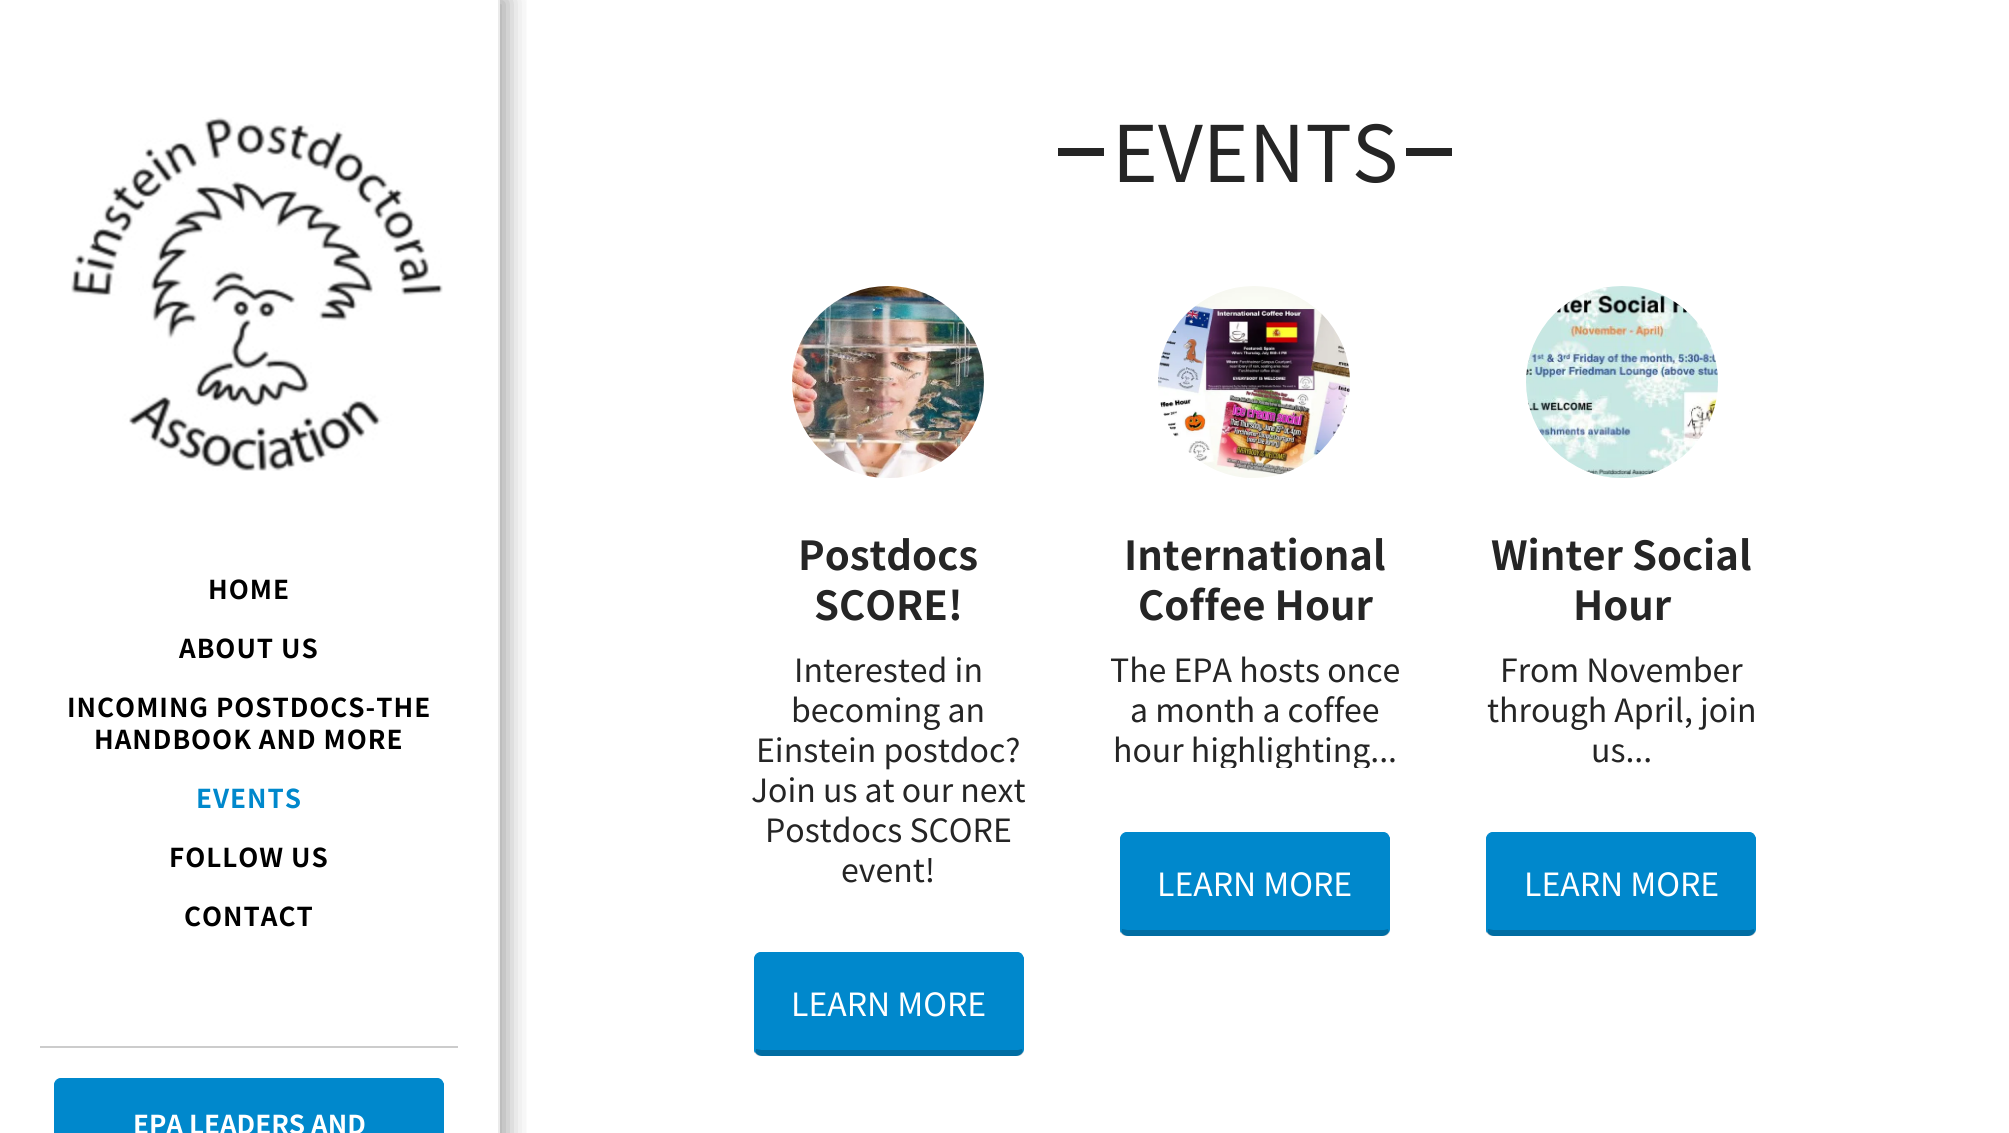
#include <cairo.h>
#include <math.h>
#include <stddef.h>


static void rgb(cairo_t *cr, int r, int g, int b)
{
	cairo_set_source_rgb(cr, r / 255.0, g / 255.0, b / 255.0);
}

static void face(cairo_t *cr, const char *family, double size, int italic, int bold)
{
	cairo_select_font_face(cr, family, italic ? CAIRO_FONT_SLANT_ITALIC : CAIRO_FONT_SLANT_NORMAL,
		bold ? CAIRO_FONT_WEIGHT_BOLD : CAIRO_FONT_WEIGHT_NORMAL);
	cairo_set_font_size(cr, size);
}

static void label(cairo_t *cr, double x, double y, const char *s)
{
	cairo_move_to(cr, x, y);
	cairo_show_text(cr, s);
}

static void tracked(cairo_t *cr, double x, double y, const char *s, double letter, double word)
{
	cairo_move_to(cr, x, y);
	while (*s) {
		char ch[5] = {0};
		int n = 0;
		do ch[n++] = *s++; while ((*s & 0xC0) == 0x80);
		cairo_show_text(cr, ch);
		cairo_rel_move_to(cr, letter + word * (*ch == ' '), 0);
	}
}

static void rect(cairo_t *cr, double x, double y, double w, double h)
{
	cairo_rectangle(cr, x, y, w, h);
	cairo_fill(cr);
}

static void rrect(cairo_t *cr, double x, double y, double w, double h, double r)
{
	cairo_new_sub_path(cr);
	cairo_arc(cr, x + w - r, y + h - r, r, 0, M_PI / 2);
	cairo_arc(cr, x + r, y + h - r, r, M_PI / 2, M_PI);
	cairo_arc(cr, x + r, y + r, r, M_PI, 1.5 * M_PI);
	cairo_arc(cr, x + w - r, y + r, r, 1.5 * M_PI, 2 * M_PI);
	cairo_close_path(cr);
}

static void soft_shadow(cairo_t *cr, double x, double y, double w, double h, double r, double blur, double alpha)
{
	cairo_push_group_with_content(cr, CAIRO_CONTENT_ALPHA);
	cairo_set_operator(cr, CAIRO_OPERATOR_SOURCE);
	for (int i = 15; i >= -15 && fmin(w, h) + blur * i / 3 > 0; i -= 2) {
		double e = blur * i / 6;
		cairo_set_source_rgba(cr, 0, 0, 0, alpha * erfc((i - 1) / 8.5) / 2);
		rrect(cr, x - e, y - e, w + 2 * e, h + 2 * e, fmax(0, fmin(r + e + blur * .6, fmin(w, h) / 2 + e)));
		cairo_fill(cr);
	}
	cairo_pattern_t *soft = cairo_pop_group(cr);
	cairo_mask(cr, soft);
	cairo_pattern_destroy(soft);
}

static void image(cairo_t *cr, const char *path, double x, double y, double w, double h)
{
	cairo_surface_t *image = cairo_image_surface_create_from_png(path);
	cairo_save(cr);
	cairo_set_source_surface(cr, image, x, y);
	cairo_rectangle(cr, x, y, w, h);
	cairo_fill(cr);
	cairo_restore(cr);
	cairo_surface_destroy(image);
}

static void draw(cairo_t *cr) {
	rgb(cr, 255, 255, 255);
	cairo_paint(cr);
	cairo_save(cr);
	cairo_rectangle(cr, 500, 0, 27, 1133);
	cairo_clip(cr);
	rgb(cr, 0, 0, 0);
	soft_shadow(cr, 0, -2, 508, 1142, 0, 12, 0.35);
	cairo_restore(cr);
	rgb(cr, 235, 235, 235);
	rect(cr, 498, 0, 2, 1133);
	image(cr, "image0.png", 71, 117, 372, 354);
	face(cr, "Noto Sans JP", 26, 0, 1);
	rgb(cr, 0, 0, 0);
	tracked(cr, 208, 599, "HOME", 1, 0);
	tracked(cr, 179, 658, "ABOUT US", 1, 0);
	tracked(cr, 67, 717, "INCOMING POSTDOCS-THE", 1, 0);
	tracked(cr, 94, 749, "HANDBOOK AND MORE", 1, 0);
	rgb(cr, 0, 136, 204);
	tracked(cr, 196, 808, "EVENTS", 1, 0);
	rgb(cr, 0, 0, 0);
	tracked(cr, 169, 867, "FOLLOW US", 1, 0);
	tracked(cr, 184, 926, "CONTACT", 1, 0);
	rgb(cr, 204, 204, 204);
	rect(cr, 40, 1046, 418, 2);
	rgb(cr, 0, 136, 204);
	rrect(cr, 54, 1078, 390, 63, 8);
	cairo_fill(cr);
	cairo_new_path(cr);
	cairo_move_to(cr, 61, 1078);
	cairo_curve_to(cr, 59, 1078, 57, 1079, 56, 1080);
	cairo_line_to(cr, 57, 1081);
	cairo_curve_to(cr, 58, 1080, 60, 1080, 61, 1080);
	cairo_line_to(cr, 437, 1080);
	cairo_curve_to(cr, 438, 1080, 440, 1080, 441, 1081);
	cairo_line_to(cr, 442, 1080);
	cairo_curve_to(cr, 441, 1079, 439, 1078, 437, 1078);
	cairo_close_path(cr);
	cairo_fill(cr);
	cairo_new_path(cr);
	cairo_move_to(cr, 444, 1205);
	cairo_line_to(cr, 444, 1084);
	cairo_line_to(cr, 442, 1080);
	cairo_line_to(cr, 441, 1081);
	cairo_curve_to(cr, 442, 1082, 442, 1084, 442, 1085);
	cairo_line_to(cr, 442, 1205);
	cairo_line_to(cr, 443, 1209);
	cairo_close_path(cr);
	cairo_fill(cr);
	cairo_new_path(cr);
	cairo_move_to(cr, 54, 1085);
	cairo_line_to(cr, 54, 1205);
	cairo_curve_to(cr, 54, 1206, 54, 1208, 55, 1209);
	cairo_line_to(cr, 56, 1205);
	cairo_line_to(cr, 56, 1085);
	cairo_curve_to(cr, 56, 1084, 56, 1082, 57, 1081);
	cairo_line_to(cr, 56, 1080);
	cairo_curve_to(cr, 55, 1081, 54, 1083, 54, 1085);
	cairo_close_path(cr);
	cairo_fill(cr);
	rgb(cr, 255, 255, 255);
	label(cr, 133, 1134, "EPA LEADERS AND");
	rgb(cr, 37, 37, 37);
	rect(cr, 1058, 148, 46, 8);
	face(cr, "Noto Sans JP", 78, 0, 0);
	label(cr, 1112, 182, "EVENTS");
	rect(cr, 1406, 148, 46, 8);
	image(cr, "image1.png", 792, 286, 192, 192);
	face(cr, "Noto Sans JP", 40, 0, 1);
	label(cr, 798, 570, "Postdocs");
	label(cr, 814, 620, "SCORE!");
	face(cr, "Noto Sans JP", 32, 0, 0);
	label(cr, 794, 682, "Interested in");
	label(cr, 791, 722, "becoming an");
	label(cr, 756, 762, "Einstein postdoc?");
	label(cr, 751, 802, "Join us at our next");
	label(cr, 765, 842, "Postdocs SCORE");
	label(cr, 841, 882, "event!");
	rgb(cr, 0, 136, 204);
	rrect(cr, 754, 952, 270, 104, 8);
	cairo_fill(cr);
	cairo_new_path(cr);
	cairo_move_to(cr, 761, 952);
	cairo_curve_to(cr, 759, 952, 757, 953, 756, 954);
	cairo_line_to(cr, 757, 955);
	cairo_curve_to(cr, 758, 954, 760, 954, 761, 954);
	cairo_line_to(cr, 1017, 954);
	cairo_curve_to(cr, 1018, 954, 1020, 954, 1021, 955);
	cairo_line_to(cr, 1022, 954);
	cairo_curve_to(cr, 1021, 953, 1019, 952, 1017, 952);
	cairo_close_path(cr);
	cairo_fill(cr);
	cairo_new_path(cr);
	cairo_move_to(cr, 1024, 1049);
	cairo_line_to(cr, 1024, 958);
	cairo_line_to(cr, 1022, 954);
	cairo_line_to(cr, 1021, 955);
	cairo_curve_to(cr, 1024, 959, 1022, 973, 1022, 974);
	cairo_line_to(cr, 1022, 1049);
	cairo_line_to(cr, 1023, 1053);
	cairo_close_path(cr);
	cairo_fill(cr);
	cairo_set_source_rgba(cr, 0, 0, 0, 0.2);
	cairo_new_path(cr);
	cairo_move_to(cr, 761, 1056);
	cairo_line_to(cr, 1017, 1056);
	cairo_curve_to(cr, 1020, 1056, 1022, 1055, 1023, 1053);
	cairo_line_to(cr, 1022, 1049);
	cairo_line_to(cr, 1018, 1050);
	cairo_line_to(cr, 804, 1050);
	cairo_line_to(cr, 761, 1050);
	cairo_line_to(cr, 756, 1049);
	cairo_line_to(cr, 755, 1053);
	cairo_curve_to(cr, 756, 1055, 758, 1056, 761, 1056);
	cairo_close_path(cr);
	cairo_fill(cr);
	rgb(cr, 0, 136, 204);
	cairo_new_path(cr);
	cairo_move_to(cr, 754, 959);
	cairo_line_to(cr, 754, 1049);
	cairo_curve_to(cr, 754, 1050, 754, 1052, 755, 1053);
	cairo_line_to(cr, 756, 1049);
	cairo_line_to(cr, 756, 974);
	cairo_curve_to(cr, 756, 973, 754, 959, 757, 955);
	cairo_line_to(cr, 756, 954);
	cairo_curve_to(cr, 755, 955, 754, 957, 754, 959);
	cairo_close_path(cr);
	cairo_fill(cr);
	rgb(cr, 255, 255, 255);
	label(cr, 791, 1016, "LEARN MORE");
	image(cr, "image2.png", 1158, 286, 192, 192);
	face(cr, "Noto Sans JP", 40, 0, 1);
	rgb(cr, 37, 37, 37);
	label(cr, 1124, 570, "International");
	label(cr, 1138, 620, "Coffee Hour");
	face(cr, "Noto Sans JP", 32, 0, 0);
	label(cr, 1110, 682, "The EPA hosts once");
	label(cr, 1130, 722, "a month a coffee");
	cairo_save(cr);
	cairo_rectangle(cr, 1102, 648, 306, 120);
	cairo_clip(cr);
	label(cr, 1113, 762, "hour highlighting...");
	cairo_restore(cr);
	rgb(cr, 0, 136, 204);
	rrect(cr, 1120, 832, 270, 104, 8);
	cairo_fill(cr);
	cairo_new_path(cr);
	cairo_move_to(cr, 1127, 832);
	cairo_curve_to(cr, 1125, 832, 1123, 833, 1122, 834);
	cairo_line_to(cr, 1123, 835);
	cairo_curve_to(cr, 1124, 834, 1126, 834, 1127, 834);
	cairo_line_to(cr, 1383, 834);
	cairo_curve_to(cr, 1384, 834, 1386, 834, 1387, 835);
	cairo_line_to(cr, 1388, 834);
	cairo_curve_to(cr, 1387, 833, 1385, 832, 1383, 832);
	cairo_close_path(cr);
	cairo_fill(cr);
	cairo_new_path(cr);
	cairo_move_to(cr, 1390, 929);
	cairo_line_to(cr, 1390, 838);
	cairo_line_to(cr, 1388, 834);
	cairo_line_to(cr, 1387, 835);
	cairo_curve_to(cr, 1390, 839, 1388, 853, 1388, 854);
	cairo_line_to(cr, 1388, 929);
	cairo_line_to(cr, 1389, 933);
	cairo_close_path(cr);
	cairo_fill(cr);
	cairo_set_source_rgba(cr, 0, 0, 0, 0.2);
	cairo_new_path(cr);
	cairo_move_to(cr, 1127, 936);
	cairo_line_to(cr, 1383, 936);
	cairo_curve_to(cr, 1386, 936, 1388, 935, 1389, 933);
	cairo_line_to(cr, 1388, 929);
	cairo_line_to(cr, 1384, 930);
	cairo_line_to(cr, 1170, 930);
	cairo_line_to(cr, 1127, 930);
	cairo_line_to(cr, 1122, 929);
	cairo_line_to(cr, 1121, 933);
	cairo_curve_to(cr, 1122, 935, 1124, 936, 1127, 936);
	cairo_close_path(cr);
	cairo_fill(cr);
	rgb(cr, 0, 136, 204);
	cairo_new_path(cr);
	cairo_move_to(cr, 1120, 839);
	cairo_line_to(cr, 1120, 929);
	cairo_curve_to(cr, 1120, 930, 1120, 932, 1121, 933);
	cairo_line_to(cr, 1122, 929);
	cairo_line_to(cr, 1122, 854);
	cairo_curve_to(cr, 1122, 853, 1120, 839, 1123, 835);
	cairo_line_to(cr, 1122, 834);
	cairo_curve_to(cr, 1121, 835, 1120, 837, 1120, 839);
	cairo_close_path(cr);
	cairo_fill(cr);
	rgb(cr, 255, 255, 255);
	label(cr, 1157, 896, "LEARN MORE");
	image(cr, "image3.png", 1526, 286, 192, 192);
	face(cr, "Noto Sans JP", 40, 0, 1);
	rgb(cr, 37, 37, 37);
	label(cr, 1491, 570, "Winter Social");
	label(cr, 1573, 620, "Hour");
	face(cr, "Noto Sans JP", 32, 0, 0);
	label(cr, 1500, 682, "From November");
	label(cr, 1487, 722, "through April, join");
	label(cr, 1591, 762, "us...");
	rgb(cr, 0, 136, 204);
	rrect(cr, 1486, 832, 270, 104, 8);
	cairo_fill(cr);
	cairo_new_path(cr);
	cairo_move_to(cr, 1493, 832);
	cairo_curve_to(cr, 1491, 832, 1489, 833, 1488, 834);
	cairo_line_to(cr, 1489, 835);
	cairo_curve_to(cr, 1490, 834, 1492, 834, 1493, 834);
	cairo_line_to(cr, 1749, 834);
	cairo_curve_to(cr, 1750, 834, 1752, 834, 1753, 835);
	cairo_line_to(cr, 1754, 834);
	cairo_curve_to(cr, 1753, 833, 1751, 832, 1749, 832);
	cairo_close_path(cr);
	cairo_fill(cr);
	cairo_new_path(cr);
	cairo_move_to(cr, 1756, 929);
	cairo_line_to(cr, 1756, 838);
	cairo_line_to(cr, 1754, 834);
	cairo_line_to(cr, 1753, 835);
	cairo_curve_to(cr, 1756, 839, 1754, 853, 1754, 854);
	cairo_line_to(cr, 1754, 929);
	cairo_line_to(cr, 1755, 933);
	cairo_close_path(cr);
	cairo_fill(cr);
	cairo_set_source_rgba(cr, 0, 0, 0, 0.2);
	cairo_new_path(cr);
	cairo_move_to(cr, 1493, 936);
	cairo_line_to(cr, 1749, 936);
	cairo_curve_to(cr, 1752, 936, 1754, 935, 1755, 933);
	cairo_line_to(cr, 1754, 929);
	cairo_line_to(cr, 1750, 930);
	cairo_line_to(cr, 1536, 930);
	cairo_line_to(cr, 1493, 930);
	cairo_line_to(cr, 1488, 929);
	cairo_line_to(cr, 1487, 933);
	cairo_curve_to(cr, 1488, 935, 1490, 936, 1493, 936);
	cairo_close_path(cr);
	cairo_fill(cr);
	rgb(cr, 0, 136, 204);
	cairo_new_path(cr);
	cairo_move_to(cr, 1486, 839);
	cairo_line_to(cr, 1486, 929);
	cairo_curve_to(cr, 1486, 930, 1486, 932, 1487, 933);
	cairo_line_to(cr, 1488, 929);
	cairo_line_to(cr, 1488, 854);
	cairo_curve_to(cr, 1488, 853, 1486, 839, 1489, 835);
	cairo_line_to(cr, 1488, 834);
	cairo_curve_to(cr, 1487, 835, 1486, 837, 1486, 839);
	cairo_close_path(cr);
	cairo_fill(cr);
	rgb(cr, 255, 255, 255);
	label(cr, 1524, 896, "LEARN MORE");
}

int main(void) {
	cairo_surface_t *surface = cairo_image_surface_create(CAIRO_FORMAT_RGB24, 2009, 1133);
	cairo_t *cr = cairo_create(surface);
	cairo_font_options_t *options = cairo_font_options_create();
	cairo_font_options_set_hint_metrics(options, CAIRO_HINT_METRICS_OFF);
	cairo_font_options_set_hint_style(options, CAIRO_HINT_STYLE_NONE);
	cairo_set_font_options(cr, options);
	cairo_set_miter_limit(cr, 4);
	draw(cr);
	cairo_surface_write_to_png(surface, "render.png");
	cairo_font_options_destroy(options);
	cairo_destroy(cr);
	cairo_surface_destroy(surface);
	return 0;
}
